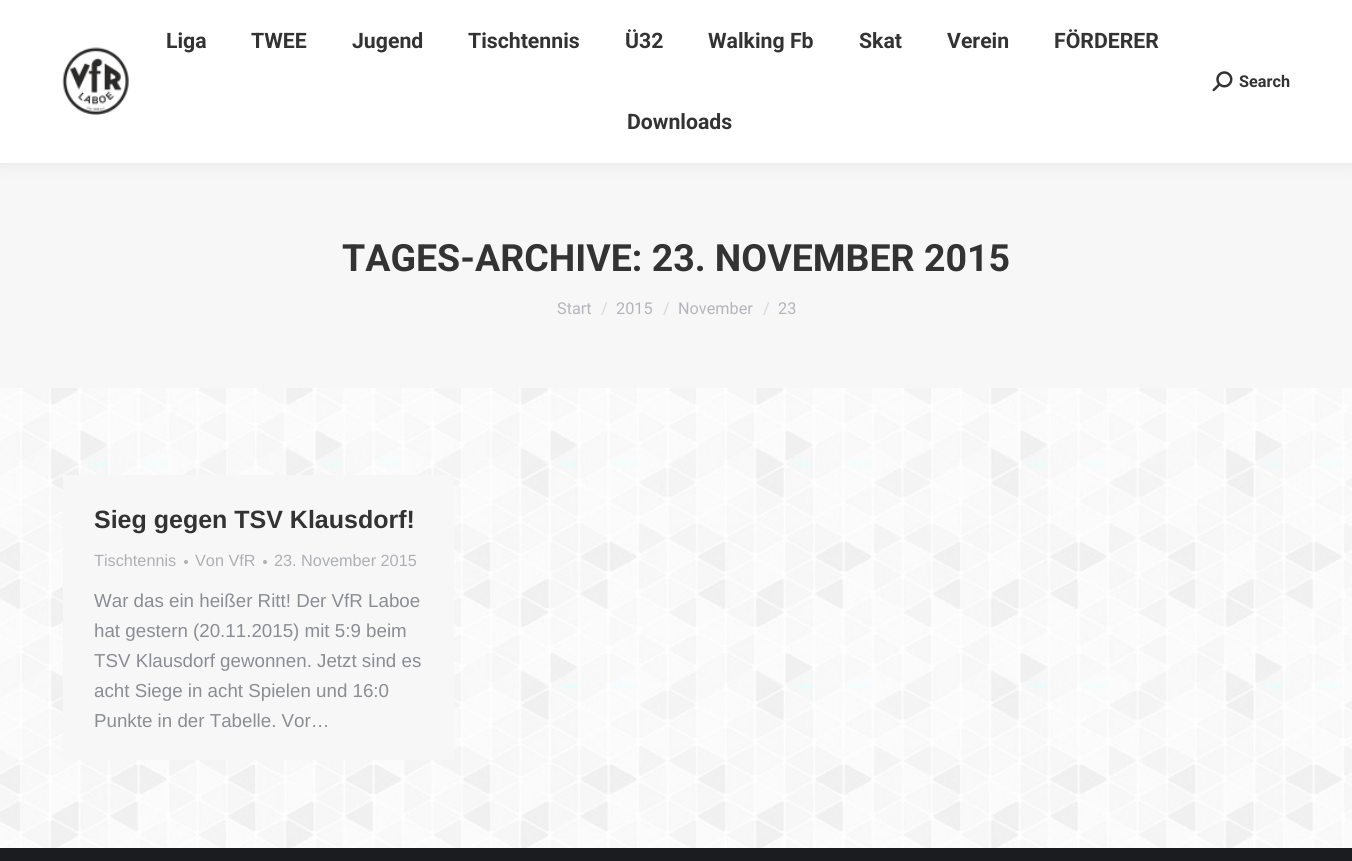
#include <cairo.h>
#include <math.h>
#include <stddef.h>


static void rgb(cairo_t *cr, int r, int g, int b)
{
	cairo_set_source_rgb(cr, r / 255.0, g / 255.0, b / 255.0);
}

static void face(cairo_t *cr, const char *family, double size, int italic, int bold)
{
	cairo_select_font_face(cr, family, italic ? CAIRO_FONT_SLANT_ITALIC : CAIRO_FONT_SLANT_NORMAL,
		bold ? CAIRO_FONT_WEIGHT_BOLD : CAIRO_FONT_WEIGHT_NORMAL);
	cairo_set_font_size(cr, size);
}

static void label(cairo_t *cr, double x, double y, const char *s)
{
	cairo_move_to(cr, x, y);
	cairo_show_text(cr, s);
}

static void rect(cairo_t *cr, double x, double y, double w, double h)
{
	cairo_rectangle(cr, x, y, w, h);
	cairo_fill(cr);
}

static void rrect(cairo_t *cr, double x, double y, double w, double h, double r)
{
	cairo_new_sub_path(cr);
	cairo_arc(cr, x + w - r, y + h - r, r, 0, M_PI / 2);
	cairo_arc(cr, x + r, y + h - r, r, M_PI / 2, M_PI);
	cairo_arc(cr, x + r, y + r, r, M_PI, 1.5 * M_PI);
	cairo_arc(cr, x + w - r, y + r, r, 1.5 * M_PI, 2 * M_PI);
	cairo_close_path(cr);
}

static void soft_shadow(cairo_t *cr, double x, double y, double w, double h, double r, double blur, double alpha)
{
	cairo_push_group_with_content(cr, CAIRO_CONTENT_ALPHA);
	cairo_set_operator(cr, CAIRO_OPERATOR_SOURCE);
	for (int i = 15; i >= -15 && fmin(w, h) + blur * i / 3 > 0; i -= 2) {
		double e = blur * i / 6;
		cairo_set_source_rgba(cr, 0, 0, 0, alpha * erfc((i - 1) / 8.5) / 2);
		rrect(cr, x - e, y - e, w + 2 * e, h + 2 * e, fmax(0, fmin(r + e + blur * .6, fmin(w, h) / 2 + e)));
		cairo_fill(cr);
	}
	cairo_pattern_t *soft = cairo_pop_group(cr);
	cairo_mask(cr, soft);
	cairo_pattern_destroy(soft);
}

static void image(cairo_t *cr, const char *path, double x, double y, double w, double h)
{
	cairo_surface_t *image = cairo_image_surface_create_from_png(path);
	cairo_save(cr);
	cairo_set_source_surface(cr, image, x, y);
	cairo_rectangle(cr, x, y, w, h);
	cairo_fill(cr);
	cairo_restore(cr);
	cairo_surface_destroy(image);
}

static void draw(cairo_t *cr) {
	rgb(cr, 255, 255, 255);
	cairo_paint(cr);
	image(cr, "image0.png", 0, 388, 1352, 460);
	rgb(cr, 247, 247, 247);
	rect(cr, 0, 163, 1352, 225);
	rgb(cr, 0, 0, 0);
	soft_shadow(cr, -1, -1, 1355, 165, 0, 9.5, 0.07);
	rgb(cr, 255, 255, 255);
	rect(cr, 0, 0, 1352, 163);
	image(cr, "image1.png", 62, 47, 67, 68);
	face(cr, "Roboto", 21.25, 0, 1);
	rgb(cr, 51, 51, 51);
	label(cr, 166, 48, "Liga");
	label(cr, 251, 48, "TWEE");
	label(cr, 352, 48, "Jugend");
	label(cr, 468, 48, "Tischtennis");
	label(cr, 625, 48, "Ü32");
	label(cr, 708, 48, "Walking Fb");
	label(cr, 859, 48, "Skat");
	label(cr, 947, 48, "Verein");
	label(cr, 1054, 48, "FÖRDERER");
	label(cr, 627, 129, "Downloads");
	image(cr, "image2.png", 1212, 71, 21, 21);
	face(cr, "Roboto", 16.25, 0, 1);
	label(cr, 1239, 87, "Search");
	face(cr, "Roboto", 37.5, 0, 1);
	label(cr, 342, 271, "TAGES-ARCHIVE: 23. NOVEMBER 2015");
	face(cr, "Roboto", 16.25, 0, 0);
	rgb(cr, 180, 181, 187);
	label(cr, 557, 314, "Start");
	rgb(cr, 214, 214, 217);
	label(cr, 601, 314, "/");
	rgb(cr, 180, 181, 187);
	label(cr, 616, 314, "2015");
	rgb(cr, 214, 214, 217);
	label(cr, 663, 314, "/");
	rgb(cr, 180, 181, 187);
	label(cr, 678, 314, "November");
	rgb(cr, 214, 214, 217);
	label(cr, 763, 314, "/");
	rgb(cr, 180, 181, 187);
	label(cr, 778, 314, "23");
	rgb(cr, 247, 247, 247);
	rect(cr, 63, 475, 391, 285);
	face(cr, "Liberation Sans", 25, 0, 1);
	rgb(cr, 51, 51, 51);
	label(cr, 94, 528, "Sieg gegen TSV Klausdorf!");
	face(cr, "Liberation Sans", 16.25, 0, 0);
	rgb(cr, 173, 175, 179);
	label(cr, 94, 566, "Tischtennis");
	cairo_new_path(cr);
	cairo_arc(cr, 186, 562, 2, 0, 2 * M_PI);
	cairo_fill(cr);
	label(cr, 195, 566, "Von VfR");
	cairo_new_path(cr);
	cairo_arc(cr, 265, 562, 2, 0, 2 * M_PI);
	cairo_fill(cr);
	label(cr, 274, 566, "23. November 2015");
	face(cr, "Liberation Sans", 18.75, 0, 0);
	rgb(cr, 139, 141, 148);
	label(cr, 94, 607, "War das ein heißer Ritt! Der VfR Laboe");
	label(cr, 94, 637, "hat gestern (20.11.2015) mit 5:9 beim");
	label(cr, 94, 667, "TSV Klausdorf gewonnen. Jetzt sind es");
	label(cr, 94, 697, "acht Siege in acht Spielen und 16:0");
	label(cr, 94, 727, "Punkte in der Tabelle. Vor…");
	rgb(cr, 26, 28, 32);
	rect(cr, 0, 848, 1352, 13);
}

int main(void) {
	cairo_surface_t *surface = cairo_image_surface_create(CAIRO_FORMAT_RGB24, 1352, 861);
	cairo_t *cr = cairo_create(surface);
	cairo_font_options_t *options = cairo_font_options_create();
	cairo_font_options_set_hint_metrics(options, CAIRO_HINT_METRICS_OFF);
	cairo_font_options_set_hint_style(options, CAIRO_HINT_STYLE_NONE);
	cairo_set_font_options(cr, options);
	cairo_set_miter_limit(cr, 4);
	draw(cr);
	cairo_surface_write_to_png(surface, "render.png");
	cairo_font_options_destroy(options);
	cairo_destroy(cr);
	cairo_surface_destroy(surface);
	return 0;
}
